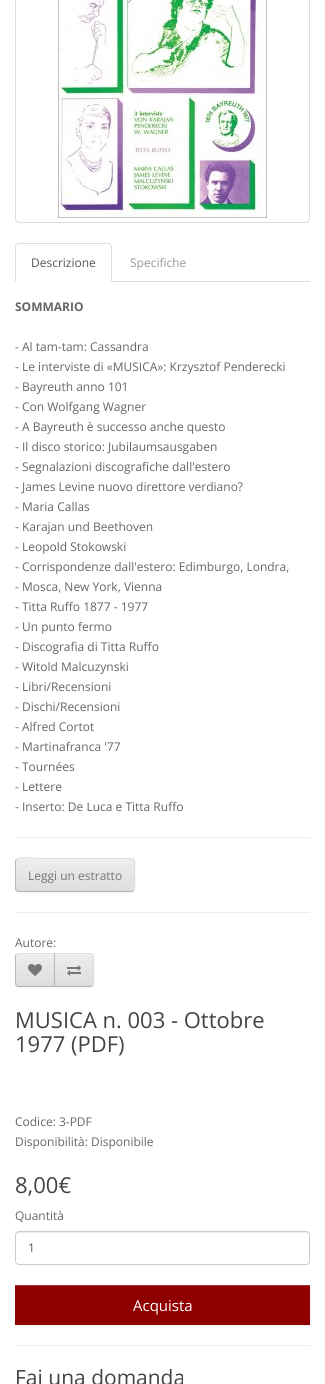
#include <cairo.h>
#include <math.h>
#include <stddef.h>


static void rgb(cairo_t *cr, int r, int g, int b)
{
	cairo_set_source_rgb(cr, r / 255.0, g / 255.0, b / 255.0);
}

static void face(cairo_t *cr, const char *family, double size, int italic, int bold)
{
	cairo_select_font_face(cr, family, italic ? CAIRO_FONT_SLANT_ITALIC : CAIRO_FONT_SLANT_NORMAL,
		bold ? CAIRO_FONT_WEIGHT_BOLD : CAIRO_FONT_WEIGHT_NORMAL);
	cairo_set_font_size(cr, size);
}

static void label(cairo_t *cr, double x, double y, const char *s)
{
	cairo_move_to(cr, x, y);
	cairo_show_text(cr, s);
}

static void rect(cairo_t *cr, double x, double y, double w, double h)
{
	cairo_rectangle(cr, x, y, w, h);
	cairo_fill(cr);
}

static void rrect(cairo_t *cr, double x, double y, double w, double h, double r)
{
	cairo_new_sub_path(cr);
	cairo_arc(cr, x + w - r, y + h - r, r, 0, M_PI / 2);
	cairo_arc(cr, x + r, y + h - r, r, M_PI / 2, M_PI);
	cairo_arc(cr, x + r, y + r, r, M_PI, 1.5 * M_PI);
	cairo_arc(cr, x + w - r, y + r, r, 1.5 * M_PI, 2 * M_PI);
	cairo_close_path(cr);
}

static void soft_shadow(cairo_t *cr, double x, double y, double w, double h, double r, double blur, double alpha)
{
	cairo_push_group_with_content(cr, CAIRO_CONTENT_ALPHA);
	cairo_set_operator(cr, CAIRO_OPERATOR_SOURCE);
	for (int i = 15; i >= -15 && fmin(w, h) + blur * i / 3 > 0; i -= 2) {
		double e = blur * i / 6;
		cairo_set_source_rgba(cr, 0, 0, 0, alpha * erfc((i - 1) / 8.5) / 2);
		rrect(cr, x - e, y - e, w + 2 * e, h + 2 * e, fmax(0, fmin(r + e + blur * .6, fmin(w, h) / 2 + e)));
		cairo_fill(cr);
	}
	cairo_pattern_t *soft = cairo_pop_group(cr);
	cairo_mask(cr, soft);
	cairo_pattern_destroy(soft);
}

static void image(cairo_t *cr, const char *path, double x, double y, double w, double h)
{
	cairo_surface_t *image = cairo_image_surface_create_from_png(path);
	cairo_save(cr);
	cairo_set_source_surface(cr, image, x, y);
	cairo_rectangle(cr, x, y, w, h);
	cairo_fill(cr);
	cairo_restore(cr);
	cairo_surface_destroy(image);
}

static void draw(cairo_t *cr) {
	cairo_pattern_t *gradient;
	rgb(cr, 255, 255, 255);
	cairo_paint(cr);
	rrect(cr, 15.5, -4.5, 294, 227, 3.5);
	rgb(cr, 221, 221, 221);
	cairo_set_line_width(cr, 1);
	cairo_stroke(cr);
	image(cr, "image0.png", 54, 0, 214, 218);
	rect(cr, 112, 281, 198, 1);
	cairo_new_path(cr);
	cairo_move_to(cr, 19, 243);
	cairo_line_to(cr, 16, 244);
	cairo_line_to(cr, 17, 245);
	cairo_line_to(cr, 19, 244);
	cairo_line_to(cr, 108, 244);
	cairo_line_to(cr, 110, 245);
	cairo_line_to(cr, 111, 244);
	cairo_line_to(cr, 108, 243);
	cairo_close_path(cr);
	cairo_fill(cr);
	cairo_new_path(cr);
	cairo_move_to(cr, 112, 282);
	cairo_line_to(cr, 112, 247);
	cairo_curve_to(cr, 112, 246, 111.5, 245, 111, 244);
	cairo_line_to(cr, 110, 245);
	cairo_curve_to(cr, 111, 245, 111, 246, 111, 247);
	cairo_line_to(cr, 111, 281);
	cairo_close_path(cr);
	cairo_fill(cr);
	cairo_new_path(cr);
	cairo_move_to(cr, 15, 282);
	cairo_line_to(cr, 16, 281);
	cairo_line_to(cr, 16, 247);
	cairo_curve_to(cr, 16, 246, 16, 245, 17, 245);
	cairo_line_to(cr, 16, 244);
	cairo_curve_to(cr, 15.5, 245, 15, 246, 15, 247);
	cairo_close_path(cr);
	cairo_fill(cr);
	face(cr, "Open Sans", 12, 0, 0);
	rgb(cr, 85, 85, 85);
	label(cr, 31, 267, "Descrizione");
	rgb(cr, 153, 153, 153);
	label(cr, 130, 267, "Specifiche");
	face(cr, "Open Sans", 12, 0, 1);
	rgb(cr, 102, 102, 102);
	label(cr, 15, 311, "SOMMARIO");
	face(cr, "Open Sans", 12, 0, 0);
	label(cr, 15, 351, "- Al tam-tam: Cassandra");
	label(cr, 15, 371, "- Le interviste di «MUSICA»: Krzysztof Penderecki");
	label(cr, 15, 391, "- Bayreuth anno 101");
	label(cr, 15, 411, "- Con Wolfgang Wagner");
	label(cr, 15, 431, "- A Bayreuth è successo anche questo");
	label(cr, 15, 451, "- Il disco storico: Jubilaumsausgaben");
	label(cr, 15, 471, "- Segnalazioni discografiche dall'estero");
	label(cr, 15, 491, "- James Levine nuovo direttore verdiano?");
	label(cr, 15, 511, "- Maria Callas");
	label(cr, 15, 531, "- Karajan und Beethoven");
	label(cr, 15, 551, "- Leopold Stokowski");
	label(cr, 15, 571, "- Corrispondenze dall'estero: Edimburgo, Londra,");
	label(cr, 15, 591, "- Mosca, New York, Vienna");
	label(cr, 15, 611, "- Titta Ruffo 1877 - 1977");
	label(cr, 15, 631, "- Un punto fermo");
	label(cr, 15, 651, "- Discografia di Titta Ruffo");
	label(cr, 15, 671, "- Witold Malcuzynski");
	label(cr, 15, 691, "- Libri/Recensioni");
	label(cr, 15, 711, "- Dischi/Recensioni");
	label(cr, 15, 731, "- Alfred Cortot");
	label(cr, 15, 751, "- Martinafranca '77");
	label(cr, 15, 771, "- Tournées");
	label(cr, 15, 791, "- Lettere");
	label(cr, 15, 811, "- Inserto: De Luca e Titta Ruffo");
	rgb(cr, 238, 238, 238);
	rect(cr, 15, 837, 295, 1);
	rgb(cr, 0, 0, 0);
	soft_shadow(cr, 15, 859, 120, 34, 4, 1, 0.05);
	rgb(cr, 231, 231, 231);
	rrect(cr, 15, 858, 120, 34, 4);
	cairo_fill(cr);
	cairo_save(cr);
	rrect(cr, 15, 858, 120, 34, 4);
	cairo_clip(cr);
	gradient = cairo_pattern_create_linear(75, 859, 75, 891);
	cairo_pattern_add_color_stop_rgba(gradient, 0, 0.933, 0.933, 0.933, 1);
	cairo_pattern_add_color_stop_rgba(gradient, 1, 0.867, 0.867, 0.867, 1);
	cairo_set_source(cr, gradient);
	cairo_pattern_destroy(gradient);
	rect(cr, 15, 859, 120, 32);
	cairo_restore(cr);
	cairo_set_source_rgba(cr, 1, 1, 1, 0.2);
	cairo_new_path(cr);
	cairo_move_to(cr, 19, 860);
	cairo_line_to(cr, 131, 860);
	cairo_curve_to(cr, 133, 860, 134, 861, 134, 863);
	cairo_curve_to(cr, 134, 861, 133, 859, 131, 859);
	cairo_line_to(cr, 38, 859);
	cairo_curve_to(cr, 36, 859, 16, 854, 16, 863);
	cairo_curve_to(cr, 16, 861, 17, 860, 19, 860);
	cairo_close_path(cr);
	cairo_fill(cr);
	cairo_new_path(cr);
	cairo_move_to(cr, 16.5, 859.5);
	cairo_line_to(cr, 17.5, 859);
	cairo_curve_to(cr, 23.5, 855.5, 31, 858.5, 37.5, 858.5);
	cairo_line_to(cr, 131, 858.5);
	cairo_curve_to(cr, 135, 858.5, 134.5, 863.5, 134.5, 866.5);
	cairo_line_to(cr, 134.5, 875);
	cairo_curve_to(cr, 134.5, 878, 135.5, 888, 133.5, 890.5);
	rgb(cr, 221, 221, 221);
	cairo_stroke(cr);
	cairo_new_path(cr);
	cairo_move_to(cr, 133.5, 890.5);
	cairo_line_to(cr, 131.5, 891.5);
	cairo_line_to(cr, 37.5, 891.5);
	cairo_line_to(cr, 19, 891.5);
	cairo_line_to(cr, 16.5, 890.5);
	rgb(cr, 179, 179, 179);
	cairo_stroke(cr);
	cairo_new_path(cr);
	cairo_move_to(cr, 16.5, 890.5);
	cairo_curve_to(cr, 16, 890, 15.5, 889, 15.5, 888);
	cairo_line_to(cr, 15.5, 862);
	cairo_curve_to(cr, 15.5, 861, 16, 860, 16.5, 859.5);
	rgb(cr, 183, 183, 183);
	cairo_stroke(cr);
	rgb(cr, 119, 119, 119);
	label(cr, 28, 880, "Leggi un estratto");
	rgb(cr, 238, 238, 238);
	rect(cr, 15, 912, 295, 1);
	rgb(cr, 102, 102, 102);
	label(cr, 15, 947, "Autore:");
	rgb(cr, 0, 0, 0);
	soft_shadow(cr, 15, 954, 40, 34, 4, 1, 0.05);
	cairo_save(cr);
	cairo_new_path(cr);
	cairo_move_to(cr, 19, 953);
	cairo_line_to(cr, 55, 953);
	cairo_line_to(cr, 55, 987);
	cairo_line_to(cr, 19, 987);
	cairo_curve_to(cr, 17, 987, 15, 985, 15, 983);
	cairo_line_to(cr, 15, 957);
	cairo_curve_to(cr, 15, 955, 17, 953, 19, 953);
	cairo_close_path(cr);
	cairo_clip(cr);
	gradient = cairo_pattern_create_linear(35, 954, 35, 986);
	cairo_pattern_add_color_stop_rgba(gradient, 0, 0.933, 0.933, 0.933, 1);
	cairo_pattern_add_color_stop_rgba(gradient, 1, 0.867, 0.867, 0.867, 1);
	cairo_set_source(cr, gradient);
	cairo_pattern_destroy(gradient);
	rect(cr, 15, 954, 39, 32);
	cairo_restore(cr);
	rgb(cr, 241, 241, 241);
	cairo_new_path(cr);
	cairo_move_to(cr, 19, 955);
	cairo_line_to(cr, 54, 955);
	cairo_line_to(cr, 54, 954);
	cairo_line_to(cr, 19, 954);
	cairo_curve_to(cr, 17.5, 954, 16, 955.5, 16, 957);
	cairo_line_to(cr, 16, 958);
	cairo_curve_to(cr, 16, 956, 17, 955, 19, 955);
	cairo_close_path(cr);
	cairo_fill(cr);
	rgb(cr, 221, 221, 221);
	cairo_new_path(cr);
	cairo_move_to(cr, 19, 953);
	cairo_curve_to(cr, 18, 953, 17, 953.5, 16, 954);
	cairo_line_to(cr, 17, 955);
	cairo_curve_to(cr, 17, 954, 18, 954, 19, 954);
	cairo_line_to(cr, 54, 954);
	cairo_line_to(cr, 55, 953);
	cairo_close_path(cr);
	cairo_fill(cr);
	rgb(cr, 179, 179, 179);
	cairo_new_path(cr);
	cairo_move_to(cr, 55, 987);
	cairo_line_to(cr, 54, 986);
	cairo_line_to(cr, 19, 986);
	cairo_curve_to(cr, 18, 986, 17, 986, 17, 985);
	cairo_line_to(cr, 16, 986);
	cairo_curve_to(cr, 17, 986.5, 18, 987, 19, 987);
	cairo_close_path(cr);
	cairo_fill(cr);
	rgb(cr, 183, 183, 183);
	cairo_new_path(cr);
	cairo_move_to(cr, 15, 957);
	cairo_line_to(cr, 15, 983);
	cairo_curve_to(cr, 15, 984, 15.5, 985, 16, 986);
	cairo_line_to(cr, 17, 985);
	cairo_curve_to(cr, 16, 985, 16, 984, 16, 983);
	cairo_line_to(cr, 16, 957);
	cairo_curve_to(cr, 16, 956, 16, 955, 17, 955);
	cairo_line_to(cr, 16, 954);
	cairo_curve_to(cr, 15.5, 955, 15, 956, 15, 957);
	cairo_close_path(cr);
	cairo_fill(cr);
	image(cr, "image1.png", 28, 964, 14, 12);
	rgb(cr, 0, 0, 0);
	soft_shadow(cr, 54, 954, 40, 34, 4, 1, 0.05);
	cairo_save(cr);
	cairo_new_path(cr);
	cairo_move_to(cr, 54, 953);
	cairo_line_to(cr, 90, 953);
	cairo_curve_to(cr, 92, 953, 94, 955, 94, 957);
	cairo_line_to(cr, 94, 983);
	cairo_curve_to(cr, 94, 985, 92, 987, 90, 987);
	cairo_line_to(cr, 54, 987);
	cairo_close_path(cr);
	cairo_clip(cr);
	gradient = cairo_pattern_create_linear(74, 954, 74, 986);
	cairo_pattern_add_color_stop_rgba(gradient, 0, 0.933, 0.933, 0.933, 1);
	cairo_pattern_add_color_stop_rgba(gradient, 1, 0.867, 0.867, 0.867, 1);
	cairo_set_source(cr, gradient);
	cairo_pattern_destroy(gradient);
	rect(cr, 55, 954, 39, 32);
	cairo_restore(cr);
	rgb(cr, 241, 241, 241);
	cairo_new_path(cr);
	cairo_move_to(cr, 55, 955);
	cairo_line_to(cr, 90, 955);
	cairo_curve_to(cr, 92, 955, 93, 956, 93, 958);
	cairo_line_to(cr, 93, 957);
	cairo_curve_to(cr, 93, 955.5, 91.5, 954, 90, 954);
	cairo_line_to(cr, 55, 954);
	cairo_close_path(cr);
	cairo_fill(cr);
	rgb(cr, 221, 221, 221);
	cairo_new_path(cr);
	cairo_move_to(cr, 54, 953);
	cairo_line_to(cr, 55, 954);
	cairo_line_to(cr, 90, 954);
	cairo_curve_to(cr, 91, 954, 92, 954, 92, 955);
	cairo_line_to(cr, 93, 954);
	cairo_curve_to(cr, 92, 953.5, 91, 953, 90, 953);
	cairo_close_path(cr);
	cairo_fill(cr);
	cairo_new_path(cr);
	cairo_move_to(cr, 94, 983);
	cairo_line_to(cr, 94, 957);
	cairo_curve_to(cr, 94, 956, 93.5, 955, 93, 954);
	cairo_line_to(cr, 92, 955);
	cairo_curve_to(cr, 93, 955, 93, 956, 93, 957);
	cairo_line_to(cr, 93, 983);
	cairo_curve_to(cr, 93, 984, 93, 985, 92, 985);
	cairo_line_to(cr, 93, 986);
	cairo_curve_to(cr, 93.5, 985, 94, 984, 94, 983);
	cairo_close_path(cr);
	cairo_fill(cr);
	rgb(cr, 179, 179, 179);
	cairo_new_path(cr);
	cairo_move_to(cr, 90, 987);
	cairo_curve_to(cr, 91, 987, 92, 986.5, 93, 986);
	cairo_line_to(cr, 92, 985);
	cairo_curve_to(cr, 92, 986, 91, 986, 90, 986);
	cairo_line_to(cr, 55, 986);
	cairo_line_to(cr, 54, 987);
	cairo_close_path(cr);
	cairo_fill(cr);
	rgb(cr, 183, 183, 183);
	cairo_new_path(cr);
	cairo_move_to(cr, 54, 953);
	cairo_line_to(cr, 54, 987);
	cairo_line_to(cr, 55, 986);
	cairo_line_to(cr, 55, 954);
	cairo_close_path(cr);
	cairo_fill(cr);
	image(cr, "image2.png", 67, 965, 14, 11);
	face(cr, "Open Sans", 22, 0, 0);
	rgb(cr, 68, 68, 68);
	label(cr, 15, 1028, "MUSICA n. 003 - Ottobre");
	label(cr, 15, 1052, "1977 (PDF)");
	face(cr, "Open Sans", 12, 0, 0);
	rgb(cr, 102, 102, 102);
	label(cr, 15, 1126, "Codice: 3-PDF");
	label(cr, 15, 1146, "Disponibilità: Disponibile");
	face(cr, "Open Sans", 22, 0, 0);
	rgb(cr, 68, 68, 68);
	label(cr, 15, 1193, "8,00€");
	face(cr, "Open Sans", 12, 0, 0);
	rgb(cr, 102, 102, 102);
	label(cr, 15, 1220, "Quantità");
	rgb(cr, 236, 236, 236);
	cairo_new_path(cr);
	cairo_move_to(cr, 19, 1233);
	cairo_line_to(cr, 306, 1233);
	cairo_curve_to(cr, 308, 1233, 309, 1234, 309, 1236);
	cairo_curve_to(cr, 309, 1234, 308, 1232, 306, 1232);
	cairo_line_to(cr, 19, 1232);
	cairo_curve_to(cr, 17, 1232, 16, 1234, 16, 1236);
	cairo_curve_to(cr, 16, 1234, 17, 1233, 19, 1233);
	cairo_close_path(cr);
	cairo_fill(cr);
	rrect(cr, 15.5, 1231.5, 294, 33, 3.5);
	rgb(cr, 204, 204, 204);
	cairo_stroke(cr);
	rgb(cr, 85, 85, 85);
	label(cr, 28, 1252, "1");
	rgb(cr, 0, 0, 0);
	soft_shadow(cr, 15, 1286, 295, 40, 0, 1, 0.05);
	rgb(cr, 145, 0, 0);
	rect(cr, 15, 1286, 295, 39);
	rgb(cr, 167, 51, 51);
	rect(cr, 15, 1285, 295, 1);
	face(cr, "Open Sans", 15, 0, 0);
	rgb(cr, 255, 255, 255);
	label(cr, 133, 1311, "Acquista");
	rgb(cr, 238, 238, 238);
	rect(cr, 15, 1345, 295, 1);
	face(cr, "Open Sans", 21, 0, 0);
	rgb(cr, 68, 68, 68);
	label(cr, 15, 1385, "Fai una domanda");
}

int main(void) {
	cairo_surface_t *surface = cairo_image_surface_create(CAIRO_FORMAT_RGB24, 325, 1384);
	cairo_t *cr = cairo_create(surface);
	cairo_font_options_t *options = cairo_font_options_create();
	cairo_font_options_set_hint_metrics(options, CAIRO_HINT_METRICS_OFF);
	cairo_font_options_set_hint_style(options, CAIRO_HINT_STYLE_NONE);
	cairo_set_font_options(cr, options);
	cairo_set_miter_limit(cr, 4);
	draw(cr);
	cairo_surface_write_to_png(surface, "render.png");
	cairo_font_options_destroy(options);
	cairo_destroy(cr);
	cairo_surface_destroy(surface);
	return 0;
}
